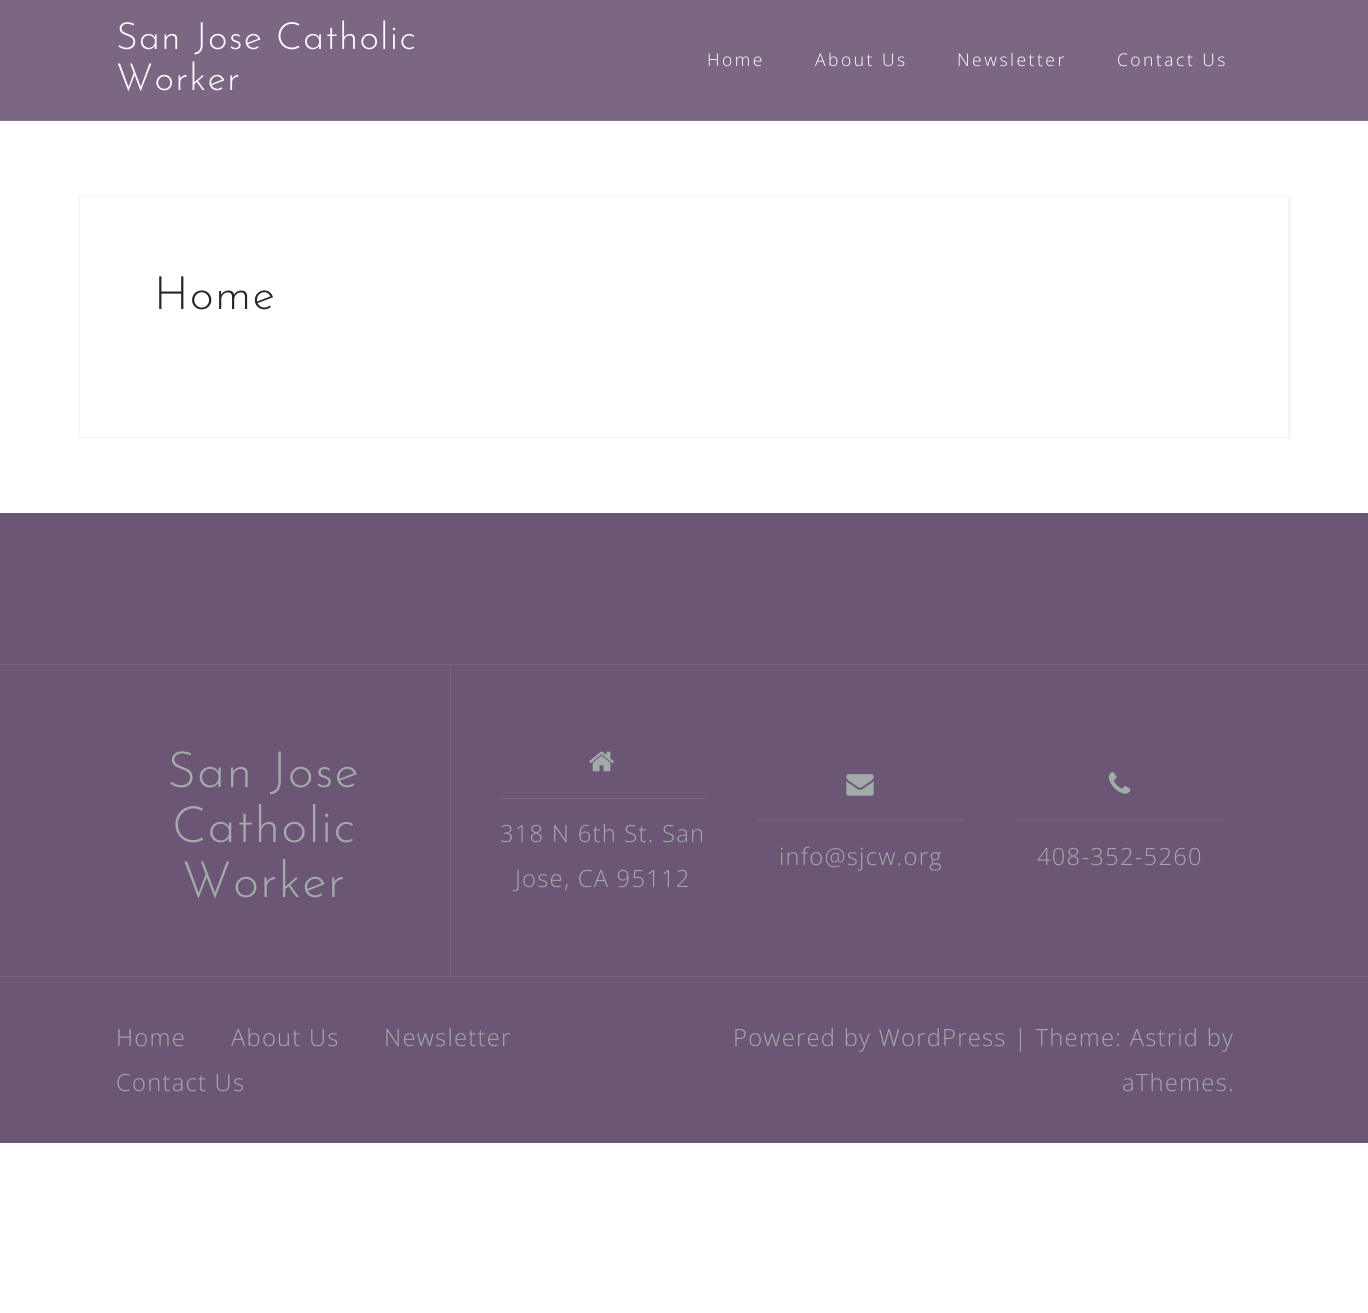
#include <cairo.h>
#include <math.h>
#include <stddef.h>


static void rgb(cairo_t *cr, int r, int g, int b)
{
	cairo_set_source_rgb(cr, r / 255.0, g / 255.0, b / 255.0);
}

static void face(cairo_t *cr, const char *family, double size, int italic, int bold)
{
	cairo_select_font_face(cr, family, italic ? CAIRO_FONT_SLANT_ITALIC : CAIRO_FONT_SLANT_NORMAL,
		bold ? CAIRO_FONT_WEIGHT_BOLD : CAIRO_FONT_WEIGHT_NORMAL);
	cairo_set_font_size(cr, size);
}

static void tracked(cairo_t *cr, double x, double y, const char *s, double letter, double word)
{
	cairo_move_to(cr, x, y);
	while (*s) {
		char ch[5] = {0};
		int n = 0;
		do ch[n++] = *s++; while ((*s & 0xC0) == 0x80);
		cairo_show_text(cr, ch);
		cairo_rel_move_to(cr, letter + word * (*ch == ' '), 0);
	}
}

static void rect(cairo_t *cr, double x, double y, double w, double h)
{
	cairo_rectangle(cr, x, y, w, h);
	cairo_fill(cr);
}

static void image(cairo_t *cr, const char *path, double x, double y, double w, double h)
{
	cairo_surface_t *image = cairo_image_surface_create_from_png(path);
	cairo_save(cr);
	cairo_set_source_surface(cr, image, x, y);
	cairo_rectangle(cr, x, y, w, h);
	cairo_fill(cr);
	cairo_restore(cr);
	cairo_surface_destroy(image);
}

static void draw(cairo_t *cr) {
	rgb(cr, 255, 255, 255);
	cairo_paint(cr);
	rgb(cr, 123, 103, 131);
	rect(cr, 0, 0, 1368, 120);
	rgb(cr, 136, 118, 143);
	rect(cr, 0, 120, 1368, 1);
	face(cr, "Josefin Sans Thin", 37.5, 0, 0);
	rgb(cr, 255, 255, 255);
	tracked(cr, 116, 49, "San Jose Catholic", 1.25, 0);
	tracked(cr, 116, 90, "Worker", 1.25, 0);
	face(cr, "Open Sans Light", 17.5, 0, 0);
	tracked(cr, 707, 66, "Home", 2.5, 0);
	tracked(cr, 815, 66, "About Us", 2.5, 0);
	tracked(cr, 957, 66, "Newsletter", 2.5, 0);
	tracked(cr, 1117, 66, "Contact Us", 2.5, 0);
	rgb(cr, 242, 242, 243);
	rect(cr, 1290, 196, 1, 242);
	rect(cr, 1289, 436, 2, 1);
	cairo_rectangle(cr, 79.5, 196.5, 1209, 241);
	cairo_set_line_width(cr, 1);
	cairo_stroke(cr);
	face(cr, "Josefin Sans Thin", 46, 0, 0);
	rgb(cr, 39, 39, 39);
	tracked(cr, 154, 309, "Home", 1.25, 0);
	rgb(cr, 108, 86, 117);
	rect(cr, 0, 513, 1368, 151);
	rgb(cr, 120, 100, 128);
	rect(cr, 0, 664, 1368, 1);
	rgb(cr, 108, 86, 117);
	rect(cr, 0, 665, 1368, 478);
	rgb(cr, 120, 100, 128);
	rect(cr, 0, 976, 1368, 1);
	face(cr, "Josefin Sans Thin", 50, 0, 0);
	rgb(cr, 163, 170, 170);
	tracked(cr, 167, 787, "San Jose", 1.25, 0);
	tracked(cr, 172, 842, "Catholic", 1.25, 0);
	tracked(cr, 182, 897, "Worker", 1.25, 0);
	rgb(cr, 120, 100, 128);
	rect(cr, 450, 665, 1, 311);
	image(cr, "image0.png", 589, 751, 25, 21);
	rect(cr, 499, 798, 209, 1);
	face(cr, "Open Sans Light", 23.75, 0, 0);
	rgb(cr, 163, 170, 170);
	tracked(cr, 500, 842, "318 N 6th St. San", 1.25, 0);
	tracked(cr, 515, 887, "Jose, CA 95112", 1.25, 0);
	image(cr, "image1.png", 846, 774, 28, 22);
	rgb(cr, 120, 100, 128);
	rect(cr, 758, 820, 207, 1);
	rgb(cr, 163, 170, 170);
	tracked(cr, 779, 865, "info@sjcw.org", 1.25, 0);
	image(cr, "image2.png", 1108, 772, 23, 22);
	rgb(cr, 120, 100, 128);
	rect(cr, 1015, 820, 209, 1);
	rgb(cr, 163, 170, 170);
	tracked(cr, 1037, 865, "408-352-5260", 1.25, 0);
	tracked(cr, 116, 1046, "Home", 1.25, 0);
	tracked(cr, 231, 1046, "About Us", 1.25, 0);
	tracked(cr, 384, 1046, "Newsletter", 1.25, 0);
	tracked(cr, 116, 1091, "Contact Us", 1.25, 0);
	tracked(cr, 733, 1046, "Powered by WordPress | Theme: Astrid by", 1.25, 0);
	tracked(cr, 1122, 1091, "aThemes.", 1.25, 0);
}

int main(void) {
	cairo_surface_t *surface = cairo_image_surface_create(CAIRO_FORMAT_RGB24, 1368, 1313);
	cairo_t *cr = cairo_create(surface);
	cairo_font_options_t *options = cairo_font_options_create();
	cairo_font_options_set_hint_metrics(options, CAIRO_HINT_METRICS_OFF);
	cairo_font_options_set_hint_style(options, CAIRO_HINT_STYLE_NONE);
	cairo_set_font_options(cr, options);
	cairo_set_miter_limit(cr, 4);
	draw(cr);
	cairo_surface_write_to_png(surface, "render.png");
	cairo_font_options_destroy(options);
	cairo_destroy(cr);
	cairo_surface_destroy(surface);
	return 0;
}
